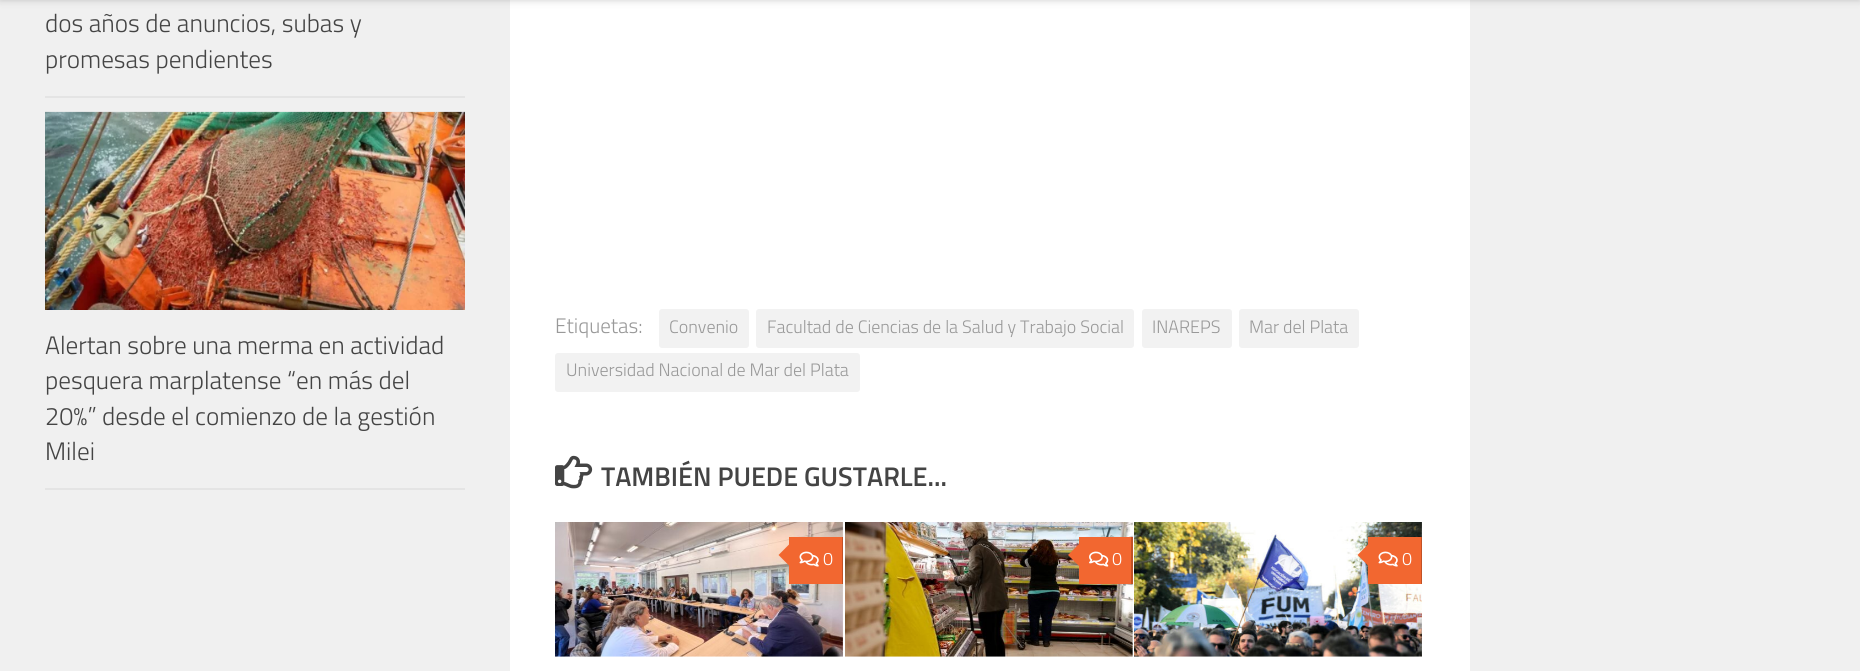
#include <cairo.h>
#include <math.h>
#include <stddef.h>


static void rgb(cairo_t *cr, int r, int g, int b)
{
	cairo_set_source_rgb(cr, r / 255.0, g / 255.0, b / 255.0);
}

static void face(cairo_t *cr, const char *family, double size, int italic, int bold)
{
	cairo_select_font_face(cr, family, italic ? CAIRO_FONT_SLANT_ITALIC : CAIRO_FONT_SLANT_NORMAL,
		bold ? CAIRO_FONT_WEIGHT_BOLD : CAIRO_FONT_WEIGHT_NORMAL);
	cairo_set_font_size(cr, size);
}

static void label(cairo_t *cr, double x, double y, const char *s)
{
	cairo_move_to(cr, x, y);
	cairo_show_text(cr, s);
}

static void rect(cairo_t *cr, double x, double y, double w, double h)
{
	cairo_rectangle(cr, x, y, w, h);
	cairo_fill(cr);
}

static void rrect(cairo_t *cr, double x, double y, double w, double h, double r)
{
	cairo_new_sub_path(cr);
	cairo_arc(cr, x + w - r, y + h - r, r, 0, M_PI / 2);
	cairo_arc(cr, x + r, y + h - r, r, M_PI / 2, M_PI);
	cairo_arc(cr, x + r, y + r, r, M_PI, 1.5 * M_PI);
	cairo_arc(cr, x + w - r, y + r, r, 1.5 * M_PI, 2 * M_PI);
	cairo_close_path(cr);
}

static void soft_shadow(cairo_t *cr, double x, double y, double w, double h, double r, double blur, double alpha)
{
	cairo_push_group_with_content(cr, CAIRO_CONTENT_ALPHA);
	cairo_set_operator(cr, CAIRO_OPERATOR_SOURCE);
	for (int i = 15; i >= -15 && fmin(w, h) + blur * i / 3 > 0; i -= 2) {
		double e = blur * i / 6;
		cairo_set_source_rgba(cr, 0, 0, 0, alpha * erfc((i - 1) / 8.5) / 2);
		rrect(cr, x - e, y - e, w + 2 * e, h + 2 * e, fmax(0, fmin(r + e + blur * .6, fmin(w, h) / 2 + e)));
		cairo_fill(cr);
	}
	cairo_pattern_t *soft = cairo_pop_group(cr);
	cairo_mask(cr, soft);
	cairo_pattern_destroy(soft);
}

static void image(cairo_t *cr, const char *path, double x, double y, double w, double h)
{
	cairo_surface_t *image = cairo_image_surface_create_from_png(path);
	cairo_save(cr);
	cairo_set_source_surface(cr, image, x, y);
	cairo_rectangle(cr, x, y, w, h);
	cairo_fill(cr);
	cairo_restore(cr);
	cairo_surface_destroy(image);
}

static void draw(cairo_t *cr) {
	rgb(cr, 255, 255, 255);
	cairo_paint(cr);
	rgb(cr, 240, 240, 240);
	rect(cr, 0, 0, 510, 671);
	rect(cr, 1470, 0, 390, 671);
	rgb(cr, 0, 0, 0);
	soft_shadow(cr, 0, -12, 1860, 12, 0, 4, 0.2);
	rgb(cr, 228, 228, 228);
	rect(cr, 45, 96, 420, 2);
	face(cr, "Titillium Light", 25.25, 0, 0);
	rgb(cr, 68, 68, 68);
	label(cr, 45, 32, "dos años de anuncios, subas y");
	label(cr, 45, 68, "promesas pendientes");
	rgb(cr, 228, 228, 228);
	rect(cr, 45, 488, 420, 2);
	image(cr, "image0.png", 45, 111, 420, 199);
	rgb(cr, 68, 68, 68);
	label(cr, 45, 354, "Alertan sobre una merma en actividad");
	label(cr, 45, 389, "pesquera marplatense “en más del");
	label(cr, 45, 425, "20%” desde el comienzo de la gestión");
	label(cr, 45, 460, "Milei");
	face(cr, "Titillium Light", 21, 0, 0);
	rgb(cr, 153, 153, 153);
	label(cr, 555, 333, "Etiquetas:");
	rgb(cr, 242, 242, 242);
	rrect(cr, 659, 309, 90, 39, 3);
	cairo_fill(cr);
	face(cr, "Titillium Light", 18, 0, 0);
	rgb(cr, 153, 153, 153);
	label(cr, 669, 333, "Convenio");
	rgb(cr, 242, 242, 242);
	rrect(cr, 756, 309, 378, 39, 3);
	cairo_fill(cr);
	rgb(cr, 153, 153, 153);
	label(cr, 767, 333, "Facultad de Ciencias de la Salud y Trabajo Social");
	rgb(cr, 242, 242, 242);
	rrect(cr, 1142, 309, 90, 39, 3);
	cairo_fill(cr);
	rgb(cr, 153, 153, 153);
	label(cr, 1152, 333, "INAREPS");
	rgb(cr, 242, 242, 242);
	rrect(cr, 1239, 309, 120, 39, 3);
	cairo_fill(cr);
	rgb(cr, 153, 153, 153);
	label(cr, 1249, 333, "Mar del Plata");
	rgb(cr, 242, 242, 242);
	rrect(cr, 555, 353, 305, 39, 3);
	cairo_fill(cr);
	rgb(cr, 153, 153, 153);
	label(cr, 566, 376, "Universidad Nacional de Mar del Plata");
	image(cr, "image1.png", 555, 455, 38, 34);
	face(cr, "Titillium SemiBold", 27, 0, 0);
	rgb(cr, 68, 68, 68);
	label(cr, 601, 486, "TAMBIÉN PUEDE GUSTARLE...");
	image(cr, "image2.png", 555, 522, 288, 135);
	rgb(cr, 242, 103, 48);
	rect(cr, 789, 537, 53, 47);
	rgb(cr, 194, 82, 38);
	rect(cr, 842, 537, 1, 47);
	rgb(cr, 242, 103, 48);
	cairo_new_path(cr);
	cairo_move_to(cr, 792, 541.5);
	cairo_line_to(cr, 792, 568.5);
	cairo_line_to(cr, 778.5, 555);
	cairo_close_path(cr);
	cairo_fill(cr);
	image(cr, "image3.png", 799, 551, 20, 16);
	face(cr, "Titillium Light", 18, 0, 0);
	rgb(cr, 255, 255, 255);
	label(cr, 823, 565, "0");
	image(cr, "image4.png", 845, 522, 288, 135);
	rgb(cr, 242, 103, 48);
	rect(cr, 1079, 537, 52, 47);
	rgb(cr, 194, 82, 38);
	rect(cr, 1131, 537, 2, 47);
	rgb(cr, 242, 103, 48);
	cairo_new_path(cr);
	cairo_move_to(cr, 1081.5, 541.5);
	cairo_line_to(cr, 1081.5, 568.5);
	cairo_line_to(cr, 1068, 555);
	cairo_close_path(cr);
	cairo_fill(cr);
	image(cr, "image5.png", 1089, 551, 20, 16);
	rgb(cr, 255, 255, 255);
	label(cr, 1112, 565, "0");
	image(cr, "image6.png", 1134, 522, 288, 135);
	rgb(cr, 242, 103, 48);
	rect(cr, 1368, 537, 53, 47);
	rgb(cr, 194, 82, 38);
	rect(cr, 1421, 537, 1, 47);
	rgb(cr, 242, 103, 48);
	cairo_new_path(cr);
	cairo_move_to(cr, 1371, 541.5);
	cairo_line_to(cr, 1371, 568.5);
	cairo_line_to(cr, 1357.5, 555);
	cairo_close_path(cr);
	cairo_fill(cr);
	image(cr, "image3.png", 1378, 551, 20, 16);
	rgb(cr, 255, 255, 255);
	label(cr, 1402, 565, "0");
}

int main(void) {
	cairo_surface_t *surface = cairo_image_surface_create(CAIRO_FORMAT_RGB24, 1860, 671);
	cairo_t *cr = cairo_create(surface);
	cairo_font_options_t *options = cairo_font_options_create();
	cairo_font_options_set_hint_metrics(options, CAIRO_HINT_METRICS_OFF);
	cairo_font_options_set_hint_style(options, CAIRO_HINT_STYLE_NONE);
	cairo_set_font_options(cr, options);
	cairo_set_miter_limit(cr, 4);
	draw(cr);
	cairo_surface_write_to_png(surface, "render.png");
	cairo_font_options_destroy(options);
	cairo_destroy(cr);
	cairo_surface_destroy(surface);
	return 0;
}
